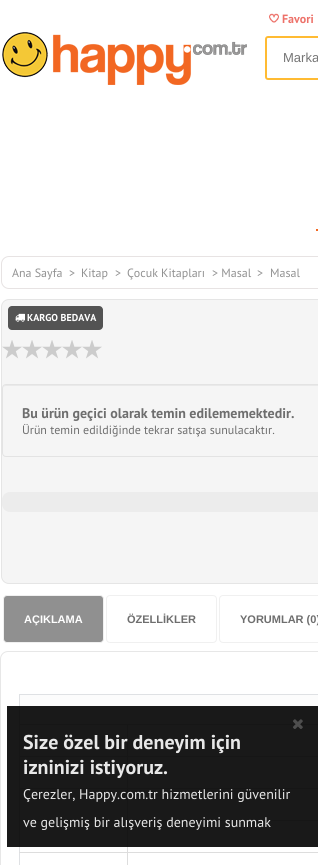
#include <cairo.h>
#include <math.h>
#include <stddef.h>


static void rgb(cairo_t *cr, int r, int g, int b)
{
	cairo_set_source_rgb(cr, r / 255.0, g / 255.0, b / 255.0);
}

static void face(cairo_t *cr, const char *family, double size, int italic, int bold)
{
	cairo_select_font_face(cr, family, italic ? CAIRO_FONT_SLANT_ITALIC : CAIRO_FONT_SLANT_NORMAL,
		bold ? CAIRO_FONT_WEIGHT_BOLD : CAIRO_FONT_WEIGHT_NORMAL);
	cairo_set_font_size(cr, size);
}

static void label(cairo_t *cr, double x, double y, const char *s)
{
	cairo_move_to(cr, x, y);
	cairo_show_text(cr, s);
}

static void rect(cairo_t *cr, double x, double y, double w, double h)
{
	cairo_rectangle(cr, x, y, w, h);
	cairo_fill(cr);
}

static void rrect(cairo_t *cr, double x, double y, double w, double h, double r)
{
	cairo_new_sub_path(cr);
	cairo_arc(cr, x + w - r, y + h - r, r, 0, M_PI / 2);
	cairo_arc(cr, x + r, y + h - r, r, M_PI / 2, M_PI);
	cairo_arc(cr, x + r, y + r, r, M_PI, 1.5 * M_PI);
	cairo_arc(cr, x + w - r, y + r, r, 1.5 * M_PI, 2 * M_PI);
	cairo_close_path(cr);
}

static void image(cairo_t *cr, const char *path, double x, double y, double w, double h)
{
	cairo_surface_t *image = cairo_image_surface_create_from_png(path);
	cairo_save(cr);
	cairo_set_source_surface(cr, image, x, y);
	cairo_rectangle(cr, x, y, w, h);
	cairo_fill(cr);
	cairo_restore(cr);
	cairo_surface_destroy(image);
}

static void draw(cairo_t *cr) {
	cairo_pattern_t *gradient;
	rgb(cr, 255, 255, 255);
	cairo_paint(cr);
	image(cr, "image0.png", 269, 13, 10, 10);
	face(cr, "PT Sans", 12, 0, 1);
	rgb(cr, 237, 113, 105);
	label(cr, 282, 23, "Favori");
	image(cr, "image1.png", 2, 32, 245, 53);
	rrect(cr, 266, 37, 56, 42, 2);
	rgb(cr, 255, 187, 51);
	cairo_stroke(cr);
	face(cr, "Liberation Sans", 13, 0, 0);
	rgb(cr, 117, 117, 117);
	label(cr, 283, 62, "Marka");
	gradient = cairo_pattern_create_linear(316, 230, 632, 230);
	cairo_pattern_add_color_stop_rgba(gradient, 0, 0.949, 0.408, 0.133, 1);
	cairo_pattern_add_color_stop_rgba(gradient, 1, 1, 0.604, 0.235, 1);
	cairo_set_source(cr, gradient);
	cairo_pattern_destroy(gradient);
	rect(cr, 316, 229, 2, 2);
	rrect(cr, 1.5, 256.5, 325, 32, 7.5);
	rgb(cr, 231, 227, 227);
	cairo_set_line_width(cr, 1);
	cairo_stroke(cr);
	face(cr, "PT Sans", 12, 0, 0);
	rgb(cr, 145, 145, 145);
	label(cr, 12, 277, "Ana Sayfa");
	label(cr, 69, 277, ">");
	label(cr, 81, 277, "Kitap");
	label(cr, 115, 277, ">");
	label(cr, 127, 277, "Çocuk Kitapları");
	label(cr, 212, 277, "> Masal");
	label(cr, 257, 277, ">");
	label(cr, 270, 277, "Masal");
	rgb(cr, 245, 245, 245);
	rrect(cr, 1.5, 299.5, 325, 284, 7.5);
	cairo_fill_preserve(cr);
	rgb(cr, 229, 229, 229);
	cairo_stroke(cr);
	rgb(cr, 83, 83, 83);
	rrect(cr, 8, 306, 95, 24, 4);
	cairo_fill(cr);
	image(cr, "image2.png", 15, 313, 10, 9);
	face(cr, "PT Sans", 10, 0, 1);
	rgb(cr, 255, 255, 255);
	label(cr, 27, 321, "KARGO BEDAVA");
	image(cr, "image3.png", 2, 340, 20, 19);
	image(cr, "image3.png", 22, 340, 20, 19);
	image(cr, "image3.png", 42, 340, 20, 19);
	image(cr, "image3.png", 62, 340, 20, 19);
	image(cr, "image3.png", 82, 340, 20, 19);
	rgb(cr, 233, 233, 233);
	cairo_new_path(cr);
	cairo_move_to(cr, 6, 386);
	cairo_line_to(cr, 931, 386);
	cairo_curve_to(cr, 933, 386, 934, 387, 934, 389);
	cairo_curve_to(cr, 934, 387, 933, 385, 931, 385);
	cairo_line_to(cr, 6, 385);
	cairo_curve_to(cr, 4, 385, 3, 387, 3, 389);
	cairo_curve_to(cr, 3, 387, 4, 386, 6, 386);
	cairo_close_path(cr);
	cairo_fill(cr);
	rrect(cr, 2.5, 384.5, 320, 72, 3.5);
	rgb(cr, 227, 227, 227);
	cairo_stroke(cr);
	face(cr, "PT Sans", 14, 0, 1);
	rgb(cr, 110, 110, 110);
	label(cr, 22, 418, "Bu ürün geçici olarak temin edilememektedir.");
	face(cr, "PT Sans", 12, 0, 0);
	label(cr, 22, 434, "Ürün temin edildiğinde tekrar satışa sunulacaktır.");
	rgb(cr, 236, 236, 236);
	rrect(cr, 2, 492, 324, 20, 8);
	cairo_fill(cr);
	rgb(cr, 144, 144, 144);
	rrect(cr, 3.5, 595.5, 100, 47, 3.5);
	cairo_fill_preserve(cr);
	rgb(cr, 240, 240, 240);
	cairo_stroke(cr);
	face(cr, "Liberation Sans", 11, 0, 1);
	rgb(cr, 255, 255, 255);
	label(cr, 24, 623, "AÇIKLAMA");
	rrect(cr, 106.5, 595.5, 110, 47, 3.5);
	rgb(cr, 240, 240, 240);
	cairo_stroke(cr);
	rgb(cr, 110, 110, 110);
	label(cr, 127, 623, "ÖZELLİKLER");
	rrect(cr, 219.5, 595.5, 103, 47, 3.5);
	rgb(cr, 240, 240, 240);
	cairo_stroke(cr);
	rgb(cr, 110, 110, 110);
	label(cr, 240, 623, "YORUMLAR (0)");
	rrect(cr, 0.5, 651.5, 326, 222, 7.5);
	rgb(cr, 231, 231, 231);
	cairo_stroke(cr);
	rgb(cr, 223, 225, 228);
	rect(cr, 19, 694, 299, 1);
	rect(cr, 19, 694, 1, 171);
	rgb(cr, 252, 252, 252);
	rect(cr, 20, 695, 298, 29);
	rgb(cr, 221, 221, 221);
	rect(cr, 127, 852, 1, 13);
	rect(cr, 127, 852, 191, 1);
	rect(cr, 127, 820, 1, 33);
	rect(cr, 127, 820, 191, 1);
	rect(cr, 127, 788, 1, 33);
	rect(cr, 127, 788, 191, 1);
	rect(cr, 127, 756, 1, 33);
	rect(cr, 127, 756, 191, 1);
	rect(cr, 127, 724, 1, 33);
	rect(cr, 19, 724, 299, 1);
	rect(cr, 19, 756, 109, 1);
	rect(cr, 19, 788, 109, 1);
	rect(cr, 19, 820, 109, 1);
	rect(cr, 19, 852, 109, 1);
	cairo_set_source_rgba(cr, 0, 0, 0, 0.9);
	rect(cr, 7, 706, 311, 141);
	image(cr, "image4.png", 293, 719, 10, 10);
	face(cr, "PT Sans", 20, 0, 1);
	rgb(cr, 232, 232, 232);
	label(cr, 23, 749, "Size özel bir deneyim için");
	label(cr, 23, 774, "izninizi istiyoruz.");
	face(cr, "PT Sans", 14, 0, 0);
	label(cr, 23, 799, "Çerezler, Happy.com.tr hizmetlerini güvenilir");
	label(cr, 23, 827, "ve gelişmiş bir alışveriş deneyimi sunmak");
}

int main(void) {
	cairo_surface_t *surface = cairo_image_surface_create(CAIRO_FORMAT_RGB24, 318, 865);
	cairo_t *cr = cairo_create(surface);
	cairo_font_options_t *options = cairo_font_options_create();
	cairo_font_options_set_hint_metrics(options, CAIRO_HINT_METRICS_OFF);
	cairo_font_options_set_hint_style(options, CAIRO_HINT_STYLE_NONE);
	cairo_set_font_options(cr, options);
	cairo_set_miter_limit(cr, 4);
	draw(cr);
	cairo_surface_write_to_png(surface, "render.png");
	cairo_font_options_destroy(options);
	cairo_destroy(cr);
	cairo_surface_destroy(surface);
	return 0;
}
